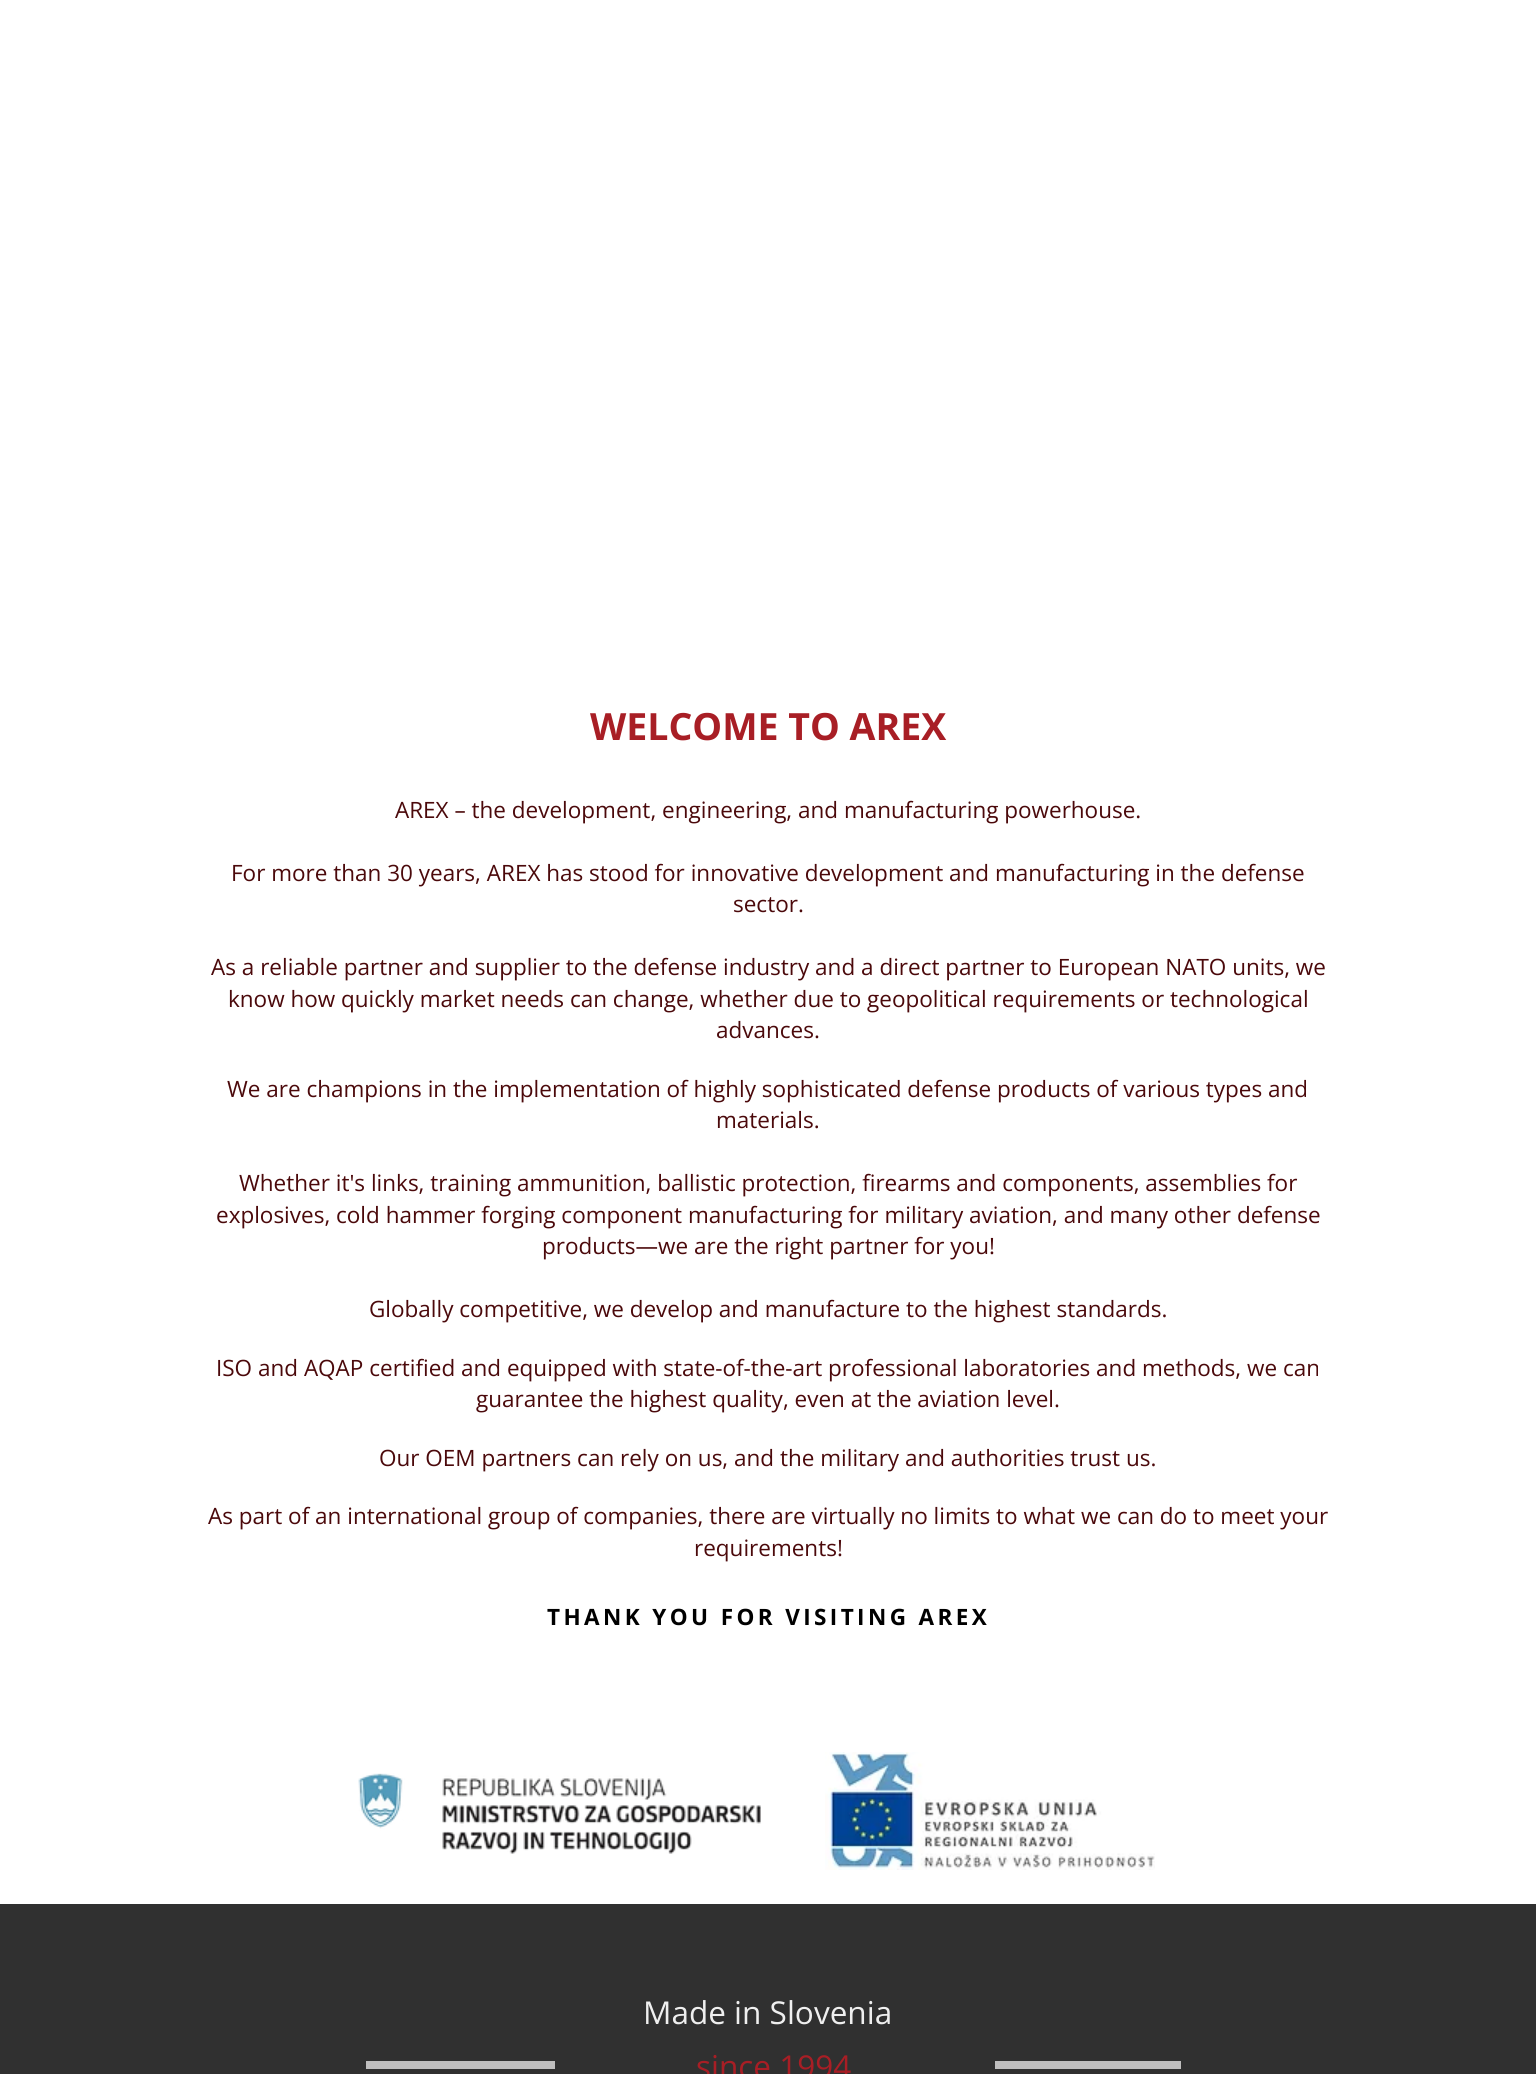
#include <cairo.h>
#include <math.h>
#include <stddef.h>


static void rgb(cairo_t *cr, int r, int g, int b)
{
	cairo_set_source_rgb(cr, r / 255.0, g / 255.0, b / 255.0);
}

static void face(cairo_t *cr, const char *family, double size, int italic, int bold)
{
	cairo_select_font_face(cr, family, italic ? CAIRO_FONT_SLANT_ITALIC : CAIRO_FONT_SLANT_NORMAL,
		bold ? CAIRO_FONT_WEIGHT_BOLD : CAIRO_FONT_WEIGHT_NORMAL);
	cairo_set_font_size(cr, size);
}

static void label(cairo_t *cr, double x, double y, const char *s)
{
	cairo_move_to(cr, x, y);
	cairo_show_text(cr, s);
}

static void tracked(cairo_t *cr, double x, double y, const char *s, double letter, double word)
{
	cairo_move_to(cr, x, y);
	while (*s) {
		char ch[5] = {0};
		int n = 0;
		do ch[n++] = *s++; while ((*s & 0xC0) == 0x80);
		cairo_show_text(cr, ch);
		cairo_rel_move_to(cr, letter + word * (*ch == ' '), 0);
	}
}

static void rect(cairo_t *cr, double x, double y, double w, double h)
{
	cairo_rectangle(cr, x, y, w, h);
	cairo_fill(cr);
}

static void image(cairo_t *cr, const char *path, double x, double y, double w, double h)
{
	cairo_surface_t *image = cairo_image_surface_create_from_png(path);
	cairo_save(cr);
	cairo_set_source_surface(cr, image, x, y);
	cairo_rectangle(cr, x, y, w, h);
	cairo_fill(cr);
	cairo_restore(cr);
	cairo_surface_destroy(image);
}

static void draw(cairo_t *cr) {
	rgb(cr, 255, 255, 255);
	cairo_paint(cr);
	face(cr, "Open Sans", 37.5, 0, 1);
	rgb(cr, 168, 30, 37);
	label(cr, 590, 740, "WELCOME TO AREX");
	face(cr, "Open Sans", 22.5, 0, 0);
	rgb(cr, 75, 9, 11);
	label(cr, 395, 818, "AREX – the development, engineering, and manufacturing powerhouse.");
	label(cr, 231, 881, "For more than 30 years, AREX has stood for innovative development and manufacturing in the defense");
	label(cr, 733, 912, "sector.");
	label(cr, 211, 975, "As a reliable partner and supplier to the defense industry and a direct partner to European NATO units, we");
	label(cr, 228, 1007, "know how quickly market needs can change, whether due to geopolitical requirements or technological");
	label(cr, 716, 1038, "advances.");
	label(cr, 227, 1097, "We are champions in the implementation of highly sophisticated defense products of various types and");
	label(cr, 716, 1128, "materials.");
	label(cr, 239, 1191, "Whether it's links, training ammunition, ballistic protection, firearms and components, assemblies for");
	label(cr, 216, 1223, "explosives, cold hammer forging component manufacturing for military aviation, and many other defense");
	label(cr, 542, 1254, "products—we are the right partner for you!");
	label(cr, 369, 1317, "Globally competitive, we develop and manufacture to the highest standards.");
	label(cr, 216, 1376, "ISO and AQAP certified and equipped with state-of-the-art professional laboratories and methods, we can");
	label(cr, 476, 1407, "guarantee the highest quality, even at the aviation level.");
	label(cr, 379, 1466, "Our OEM partners can rely on us, and the military and authorities trust us.");
	label(cr, 208, 1524, "As part of an international group of companies, there are virtually no limits to what we can do to meet your");
	label(cr, 694, 1556, "requirements!");
	face(cr, "Open Sans", 22.5, 0, 1);
	rgb(cr, 0, 0, 0);
	tracked(cr, 547, 1625, "THANK YOU FOR VISITING AREX", 3.4, 0);
	image(cr, "image0.png", 358, 1773, 403, 81);
	image(cr, "image1.png", 825, 1752, 330, 118);
	rgb(cr, 48, 48, 48);
	rect(cr, 0, 1904, 1536, 170);
	face(cr, "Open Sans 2", 31.5, 0, 0);
	rgb(cr, 239, 239, 239);
	label(cr, 643, 2024, "Made in Slovenia");
	rgb(cr, 191, 190, 190);
	rect(cr, 366, 2061, 189, 8);
	rgb(cr, 168, 30, 37);
	label(cr, 696, 2078, "since 1994");
	rgb(cr, 191, 190, 190);
	rect(cr, 995, 2061, 186, 8);
}

int main(void) {
	cairo_surface_t *surface = cairo_image_surface_create(CAIRO_FORMAT_RGB24, 1536, 2074);
	cairo_t *cr = cairo_create(surface);
	cairo_font_options_t *options = cairo_font_options_create();
	cairo_font_options_set_hint_metrics(options, CAIRO_HINT_METRICS_OFF);
	cairo_font_options_set_hint_style(options, CAIRO_HINT_STYLE_NONE);
	cairo_set_font_options(cr, options);
	cairo_set_miter_limit(cr, 4);
	draw(cr);
	cairo_surface_write_to_png(surface, "render.png");
	cairo_font_options_destroy(options);
	cairo_destroy(cr);
	cairo_surface_destroy(surface);
	return 0;
}
